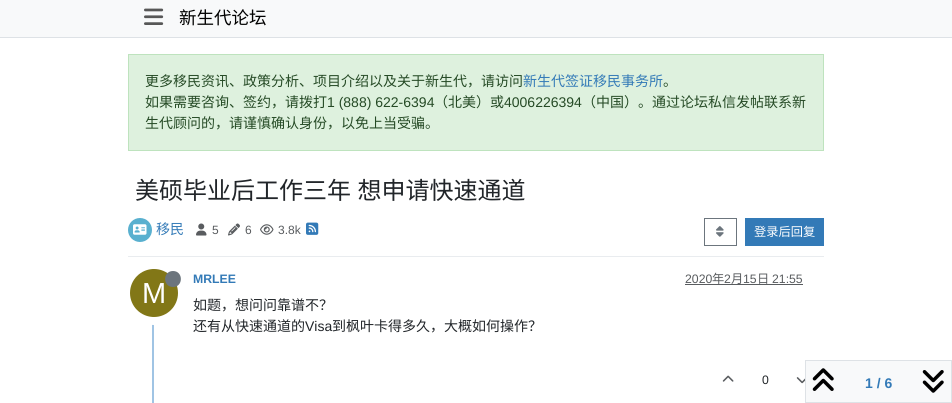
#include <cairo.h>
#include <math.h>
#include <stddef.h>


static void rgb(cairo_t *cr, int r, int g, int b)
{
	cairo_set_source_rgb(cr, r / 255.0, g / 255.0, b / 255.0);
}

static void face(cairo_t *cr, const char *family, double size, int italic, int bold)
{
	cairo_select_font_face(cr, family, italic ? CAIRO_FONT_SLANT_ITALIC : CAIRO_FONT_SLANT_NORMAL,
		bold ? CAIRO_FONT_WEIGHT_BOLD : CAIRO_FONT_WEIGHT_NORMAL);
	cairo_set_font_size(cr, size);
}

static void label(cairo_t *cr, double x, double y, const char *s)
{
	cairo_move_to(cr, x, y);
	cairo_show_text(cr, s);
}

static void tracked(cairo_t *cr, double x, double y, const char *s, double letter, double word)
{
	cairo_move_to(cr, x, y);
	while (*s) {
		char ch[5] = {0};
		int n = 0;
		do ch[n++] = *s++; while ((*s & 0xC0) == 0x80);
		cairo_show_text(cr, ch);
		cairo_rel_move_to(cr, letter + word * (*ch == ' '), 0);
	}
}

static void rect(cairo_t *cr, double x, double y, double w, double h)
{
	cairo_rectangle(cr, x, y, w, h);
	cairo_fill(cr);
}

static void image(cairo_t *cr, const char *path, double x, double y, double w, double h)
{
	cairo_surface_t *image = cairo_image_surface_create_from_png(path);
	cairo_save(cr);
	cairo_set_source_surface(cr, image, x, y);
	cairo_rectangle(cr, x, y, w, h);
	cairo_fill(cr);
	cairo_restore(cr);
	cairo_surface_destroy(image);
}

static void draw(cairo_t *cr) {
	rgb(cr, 255, 255, 255);
	cairo_paint(cr);
	rgb(cr, 248, 249, 250);
	rect(cr, 0, 0, 952, 37);
	rgb(cr, 222, 226, 230);
	rect(cr, 0, 37, 952, 1);
	image(cr, "image0.png", 144, 8, 20, 17);
	face(cr, "Noto Sans CJK SC", 17.5, 0, 0);
	rgb(cr, 0, 0, 0);
	label(cr, 179, 24, "新生代论坛");
	rgb(cr, 222, 241, 222);
	cairo_rectangle(cr, 128.5, 54.5, 695, 96);
	cairo_fill_preserve(cr);
	rgb(cr, 190, 227, 190);
	cairo_set_line_width(cr, 1);
	cairo_stroke(cr);
	face(cr, "Noto Sans CJK SC", 14, 0, 0);
	rgb(cr, 37, 74, 37);
	label(cr, 145, 86, "更多移民资讯、政策分析、项目介绍以及关于新生代，请访问");
	rgb(cr, 51, 122, 183);
	label(cr, 523, 86, "新生代签证移民事务所");
	rgb(cr, 37, 74, 37);
	label(cr, 663, 86, "。");
	label(cr, 145, 107, "如果需要咨询、签约，请拨打");
	face(cr, "Liberation Sans", 14, 0, 0);
	label(cr, 327, 107, "1 (888) 622-6394");
	face(cr, "Noto Sans CJK SC", 14, 0, 0);
	label(cr, 434, 107, "（北美）或");
	face(cr, "Liberation Sans", 14, 0, 0);
	label(cr, 504, 107, "4006226394");
	face(cr, "Noto Sans CJK SC", 14, 0, 0);
	label(cr, 582, 107, "（中国）。通过论坛私信发帖联系新");
	label(cr, 145, 128, "生代顾问的，请谨慎确认身份，以免上当受骗。");
	face(cr, "Noto Sans CJK SC", 24, 0, 0);
	rgb(cr, 33, 37, 41);
	tracked(cr, 135, 199, "美硕毕业后工作三年 想申请快速通道", 0, 1);
	rgb(cr, 233, 236, 239);
	rect(cr, 128, 256, 696, 1);
	rgb(cr, 89, 176, 207);
	cairo_new_path(cr);
	cairo_arc(cr, 140, 230, 12, 0, 2 * M_PI);
	cairo_fill(cr);
	image(cr, "image1.png", 133, 224, 14, 11);
	face(cr, "Noto Sans CJK SC", 14, 0, 0);
	rgb(cr, 51, 122, 183);
	label(cr, 156, 234, "移民");
	image(cr, "image2.png", 196, 223, 11, 13);
	face(cr, "Liberation Sans", 12, 0, 0);
	rgb(cr, 89, 92, 95);
	label(cr, 212, 234, "5");
	image(cr, "image3.png", 228, 223, 12, 13);
	label(cr, 245, 234, "6");
	image(cr, "image4.png", 260, 224, 14, 11);
	label(cr, 278, 234, "3.8k");
	image(cr, "image5.png", 306, 222, 13, 13);
	cairo_rectangle(cr, 704.5, 218.5, 32, 27);
	rgb(cr, 108, 117, 125);
	cairo_stroke(cr);
	image(cr, "image6.png", 716, 226, 8, 11);
	rgb(cr, 51, 122, 183);
	rect(cr, 745, 218, 79, 28);
	face(cr, "Noto Sans CJK SC", 12.25, 0, 0);
	rgb(cr, 255, 255, 255);
	label(cr, 754, 236, "登录后回复");
	rgb(cr, 160, 196, 228);
	rect(cr, 152, 267, 2, 136);
	face(cr, "Liberation Sans", 12.25, 0, 1);
	rgb(cr, 51, 122, 183);
	label(cr, 193, 283, "MRLEE");
	face(cr, "Liberation Sans", 12.25, 0, 0);
	rgb(cr, 89, 92, 95);
	label(cr, 685, 283, "2020");
	rect(cr, 685, 284, 118, 1);
	face(cr, "Noto Sans CJK SC", 12.25, 0, 0);
	label(cr, 712, 283, "年");
	face(cr, "Liberation Sans", 12.25, 0, 0);
	label(cr, 724, 283, "2");
	face(cr, "Noto Sans CJK SC", 12.25, 0, 0);
	label(cr, 731, 283, "月");
	face(cr, "Liberation Sans", 12.25, 0, 0);
	label(cr, 743, 283, "15");
	face(cr, "Noto Sans CJK SC", 12.25, 0, 0);
	label(cr, 757, 283, "日");
	face(cr, "Liberation Sans", 12.25, 0, 0);
	label(cr, 772, 283, "21:55");
	cairo_new_path(cr);
	cairo_arc(cr, 154, 293, 28, 0, 2 * M_PI);
	rgb(cr, 255, 255, 255);
	cairo_set_line_width(cr, 8);
	cairo_stroke(cr);
	rgb(cr, 130, 119, 23);
	cairo_arc(cr, 154, 293, 24, 0, 2 * M_PI);
	cairo_fill(cr);
	rgb(cr, 108, 117, 125);
	cairo_new_path(cr);
	cairo_move_to(cr, 173, 287);
	cairo_curve_to(cr, 183.5, 287, 183.5, 271, 173, 271);
	cairo_curve_to(cr, 162.5, 271, 162.5, 287, 173, 287);
	cairo_close_path(cr);
	cairo_fill(cr);
	face(cr, "Liberation Sans", 29, 0, 0);
	rgb(cr, 255, 255, 255);
	label(cr, 142, 303, "M");
	face(cr, "Noto Sans CJK SC", 14, 0, 0);
	rgb(cr, 33, 37, 41);
	label(cr, 193, 310, "如题，想问问靠谱不？");
	label(cr, 193, 331, "还有从快速通道的");
	face(cr, "Liberation Sans", 14, 0, 0);
	label(cr, 305, 331, "Visa");
	face(cr, "Noto Sans CJK SC", 14, 0, 0);
	label(cr, 332, 331, "到枫叶卡得多久，大概如何操作？");
	image(cr, "image7.png", 722, 375, 12, 7);
	face(cr, "Liberation Sans", 12.25, 0, 0);
	label(cr, 762, 384, "0");
	image(cr, "image8.png", 796, 377, 9, 7);
	rgb(cr, 248, 249, 250);
	cairo_rectangle(cr, 805.5, 360.5, 146, 42);
	cairo_fill_preserve(cr);
	rgb(cr, 222, 226, 230);
	cairo_set_line_width(cr, 1);
	cairo_stroke(cr);
	image(cr, "image9.png", 812, 368, 22, 23);
	face(cr, "Liberation Sans", 14, 0, 1);
	rgb(cr, 51, 122, 183);
	label(cr, 865, 388, "1 / 6");
	image(cr, "image10.png", 922, 370, 22, 23);
}

int main(void) {
	cairo_surface_t *surface = cairo_image_surface_create(CAIRO_FORMAT_RGB24, 952, 403);
	cairo_t *cr = cairo_create(surface);
	cairo_font_options_t *options = cairo_font_options_create();
	cairo_font_options_set_hint_metrics(options, CAIRO_HINT_METRICS_OFF);
	cairo_font_options_set_hint_style(options, CAIRO_HINT_STYLE_NONE);
	cairo_set_font_options(cr, options);
	cairo_set_miter_limit(cr, 4);
	draw(cr);
	cairo_surface_write_to_png(surface, "render.png");
	cairo_font_options_destroy(options);
	cairo_destroy(cr);
	cairo_surface_destroy(surface);
	return 0;
}
